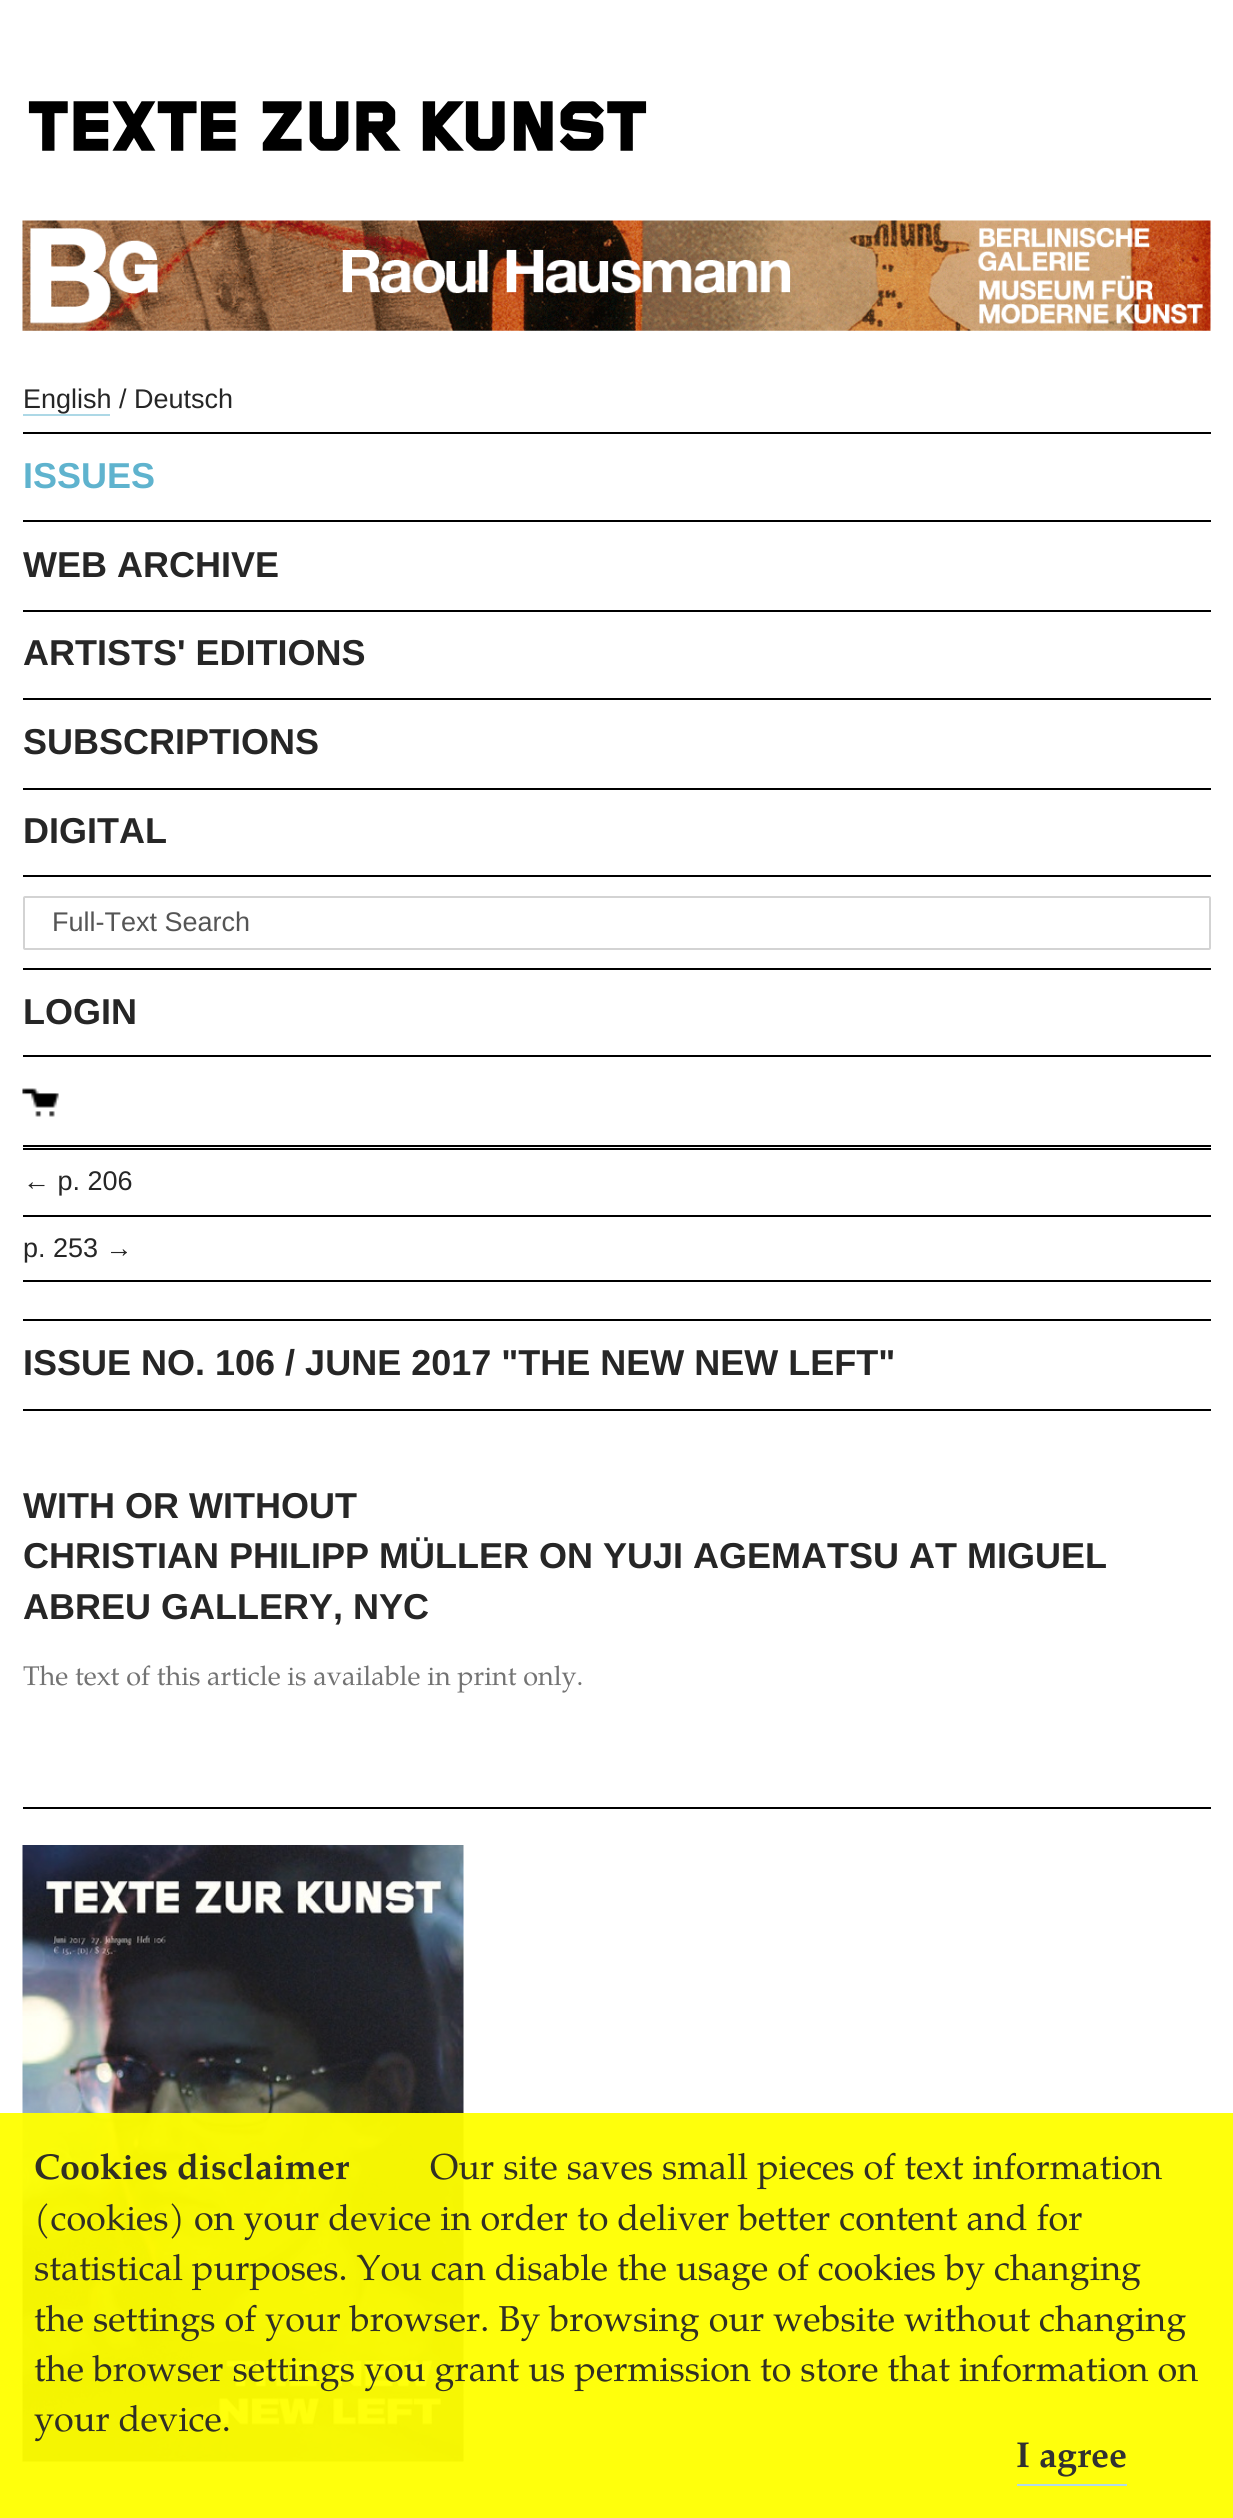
#include <cairo.h>
#include <math.h>
#include <stddef.h>


static void rgb(cairo_t *cr, int r, int g, int b)
{
	cairo_set_source_rgb(cr, r / 255.0, g / 255.0, b / 255.0);
}

static void face(cairo_t *cr, const char *family, double size, int italic, int bold)
{
	cairo_select_font_face(cr, family, italic ? CAIRO_FONT_SLANT_ITALIC : CAIRO_FONT_SLANT_NORMAL,
		bold ? CAIRO_FONT_WEIGHT_BOLD : CAIRO_FONT_WEIGHT_NORMAL);
	cairo_set_font_size(cr, size);
}

static void label(cairo_t *cr, double x, double y, const char *s)
{
	cairo_move_to(cr, x, y);
	cairo_show_text(cr, s);
}

static void rect(cairo_t *cr, double x, double y, double w, double h)
{
	cairo_rectangle(cr, x, y, w, h);
	cairo_fill(cr);
}

static void rrect(cairo_t *cr, double x, double y, double w, double h, double r)
{
	cairo_new_sub_path(cr);
	cairo_arc(cr, x + w - r, y + h - r, r, 0, M_PI / 2);
	cairo_arc(cr, x + r, y + h - r, r, M_PI / 2, M_PI);
	cairo_arc(cr, x + r, y + r, r, M_PI, 1.5 * M_PI);
	cairo_arc(cr, x + w - r, y + r, r, 1.5 * M_PI, 2 * M_PI);
	cairo_close_path(cr);
}

static void image(cairo_t *cr, const char *path, double x, double y, double w, double h)
{
	cairo_surface_t *image = cairo_image_surface_create_from_png(path);
	cairo_save(cr);
	cairo_set_source_surface(cr, image, x, y);
	cairo_rectangle(cr, x, y, w, h);
	cairo_fill(cr);
	cairo_restore(cr);
	cairo_surface_destroy(image);
}

static void draw(cairo_t *cr) {
	rgb(cr, 255, 255, 255);
	cairo_paint(cr);
	image(cr, "image0.png", 28, 101, 619, 50);
	image(cr, "image1.png", 22, 220, 1189, 111);
	face(cr, "Liberation Sans", 27, 0, 0);
	rgb(cr, 38, 38, 38);
	label(cr, 23, 408, "English / Deutsch");
	rgb(cr, 173, 216, 230);
	rect(cr, 23, 414, 87, 2);
	rgb(cr, 0, 0, 0);
	rect(cr, 23, 432, 1188, 2);
	rect(cr, 23, 520, 1188, 2);
	face(cr, "Liberation Sans", 36, 0, 1);
	rgb(cr, 95, 179, 206);
	label(cr, 23, 488, "ISSUES");
	rgb(cr, 0, 0, 0);
	rect(cr, 23, 610, 1188, 2);
	rgb(cr, 38, 38, 38);
	label(cr, 23, 577, "WEB ARCHIVE");
	rgb(cr, 0, 0, 0);
	rect(cr, 23, 698, 1188, 2);
	rgb(cr, 38, 38, 38);
	label(cr, 23, 665, "ARTISTS' EDITIONS");
	rgb(cr, 0, 0, 0);
	rect(cr, 23, 788, 1188, 2);
	rgb(cr, 38, 38, 38);
	label(cr, 23, 754, "SUBSCRIPTIONS");
	rgb(cr, 0, 0, 0);
	rect(cr, 23, 875, 1188, 2);
	rgb(cr, 38, 38, 38);
	label(cr, 23, 843, "DIGITAL");
	rgb(cr, 0, 0, 0);
	rect(cr, 23, 968, 1188, 2);
	rrect(cr, 24, 897, 1186, 52, 1);
	rgb(cr, 211, 211, 211);
	cairo_stroke(cr);
	face(cr, "Liberation Sans", 27, 0, 0);
	rgb(cr, 85, 85, 85);
	label(cr, 52, 931, "Full-Text Search");
	rgb(cr, 0, 0, 0);
	rect(cr, 23, 1055, 1188, 2);
	face(cr, "Liberation Sans", 36, 0, 1);
	rgb(cr, 38, 38, 38);
	label(cr, 23, 1024, "LOGIN");
	rgb(cr, 0, 0, 0);
	rect(cr, 23, 1145, 1188, 2);
	image(cr, "image2.png", 22, 1088, 37, 29);
	rect(cr, 23, 1148, 1188, 2);
	rect(cr, 23, 1215, 1188, 2);
	face(cr, "Liberation Sans", 27, 0, 0);
	rgb(cr, 38, 38, 38);
	label(cr, 23, 1190, "← p. 206");
	rgb(cr, 0, 0, 0);
	rect(cr, 23, 1280, 1188, 2);
	rgb(cr, 38, 38, 38);
	label(cr, 23, 1257, "p. 253 →");
	rgb(cr, 0, 0, 0);
	rect(cr, 23, 1319, 1188, 2);
	rect(cr, 23, 1409, 1188, 2);
	face(cr, "Liberation Sans", 36, 0, 1);
	rgb(cr, 38, 38, 38);
	label(cr, 23, 1375, "ISSUE NO. 106 / JUNE 2017 \"THE NEW NEW LEFT\"");
	label(cr, 23, 1518, "WITH OR WITHOUT");
	label(cr, 23, 1568, "CHRISTIAN PHILIPP MÜLLER ON YUJI AGEMATSU AT MIGUEL");
	label(cr, 23, 1619, "ABREU GALLERY, NYC");
	face(cr, "TeX Gyre Pagella", 27, 0, 0);
	rgb(cr, 115, 115, 115);
	label(cr, 23, 1685, "The text of this article is available in print only.");
	rgb(cr, 0, 0, 0);
	rect(cr, 23, 1807, 1188, 2);
	rgb(cr, 173, 216, 230);
	rect(cr, 463, 2171, 1, 2);
	image(cr, "image3.png", 22, 1845, 442, 617);
	cairo_set_source_rgba(cr, 1, 1, 0, 0.95);
	rect(cr, 0, 2113, 1233, 405);
	face(cr, "TeX Gyre Pagella", 36, 0, 1);
	rgb(cr, 49, 48, 36);
	label(cr, 34, 2179, "Cookies disclaimer");
	face(cr, "TeX Gyre Pagella", 36, 0, 0);
	label(cr, 430, 2179, "Our site saves small pieces of text information");
	label(cr, 34, 2230, "(cookies) on your device in order to deliver better content and for");
	label(cr, 34, 2280, "statistical purposes. You can disable the usage of cookies by changing");
	label(cr, 34, 2331, "the settings of your browser. By browsing our website without changing");
	label(cr, 34, 2381, "the browser settings you grant us permission to store that information on");
	label(cr, 34, 2431, "your device.");
	rgb(cr, 177, 218, 231);
	rect(cr, 1017, 2484, 110, 2);
	face(cr, "TeX Gyre Pagella", 36, 0, 1);
	rgb(cr, 49, 49, 49);
	label(cr, 1016, 2467, "I agree");
}

int main(void) {
	cairo_surface_t *surface = cairo_image_surface_create(CAIRO_FORMAT_RGB24, 1233, 2518);
	cairo_t *cr = cairo_create(surface);
	cairo_font_options_t *options = cairo_font_options_create();
	cairo_font_options_set_hint_metrics(options, CAIRO_HINT_METRICS_OFF);
	cairo_font_options_set_hint_style(options, CAIRO_HINT_STYLE_NONE);
	cairo_set_font_options(cr, options);
	cairo_set_miter_limit(cr, 4);
	draw(cr);
	cairo_surface_write_to_png(surface, "render.png");
	cairo_font_options_destroy(options);
	cairo_destroy(cr);
	cairo_surface_destroy(surface);
	return 0;
}
